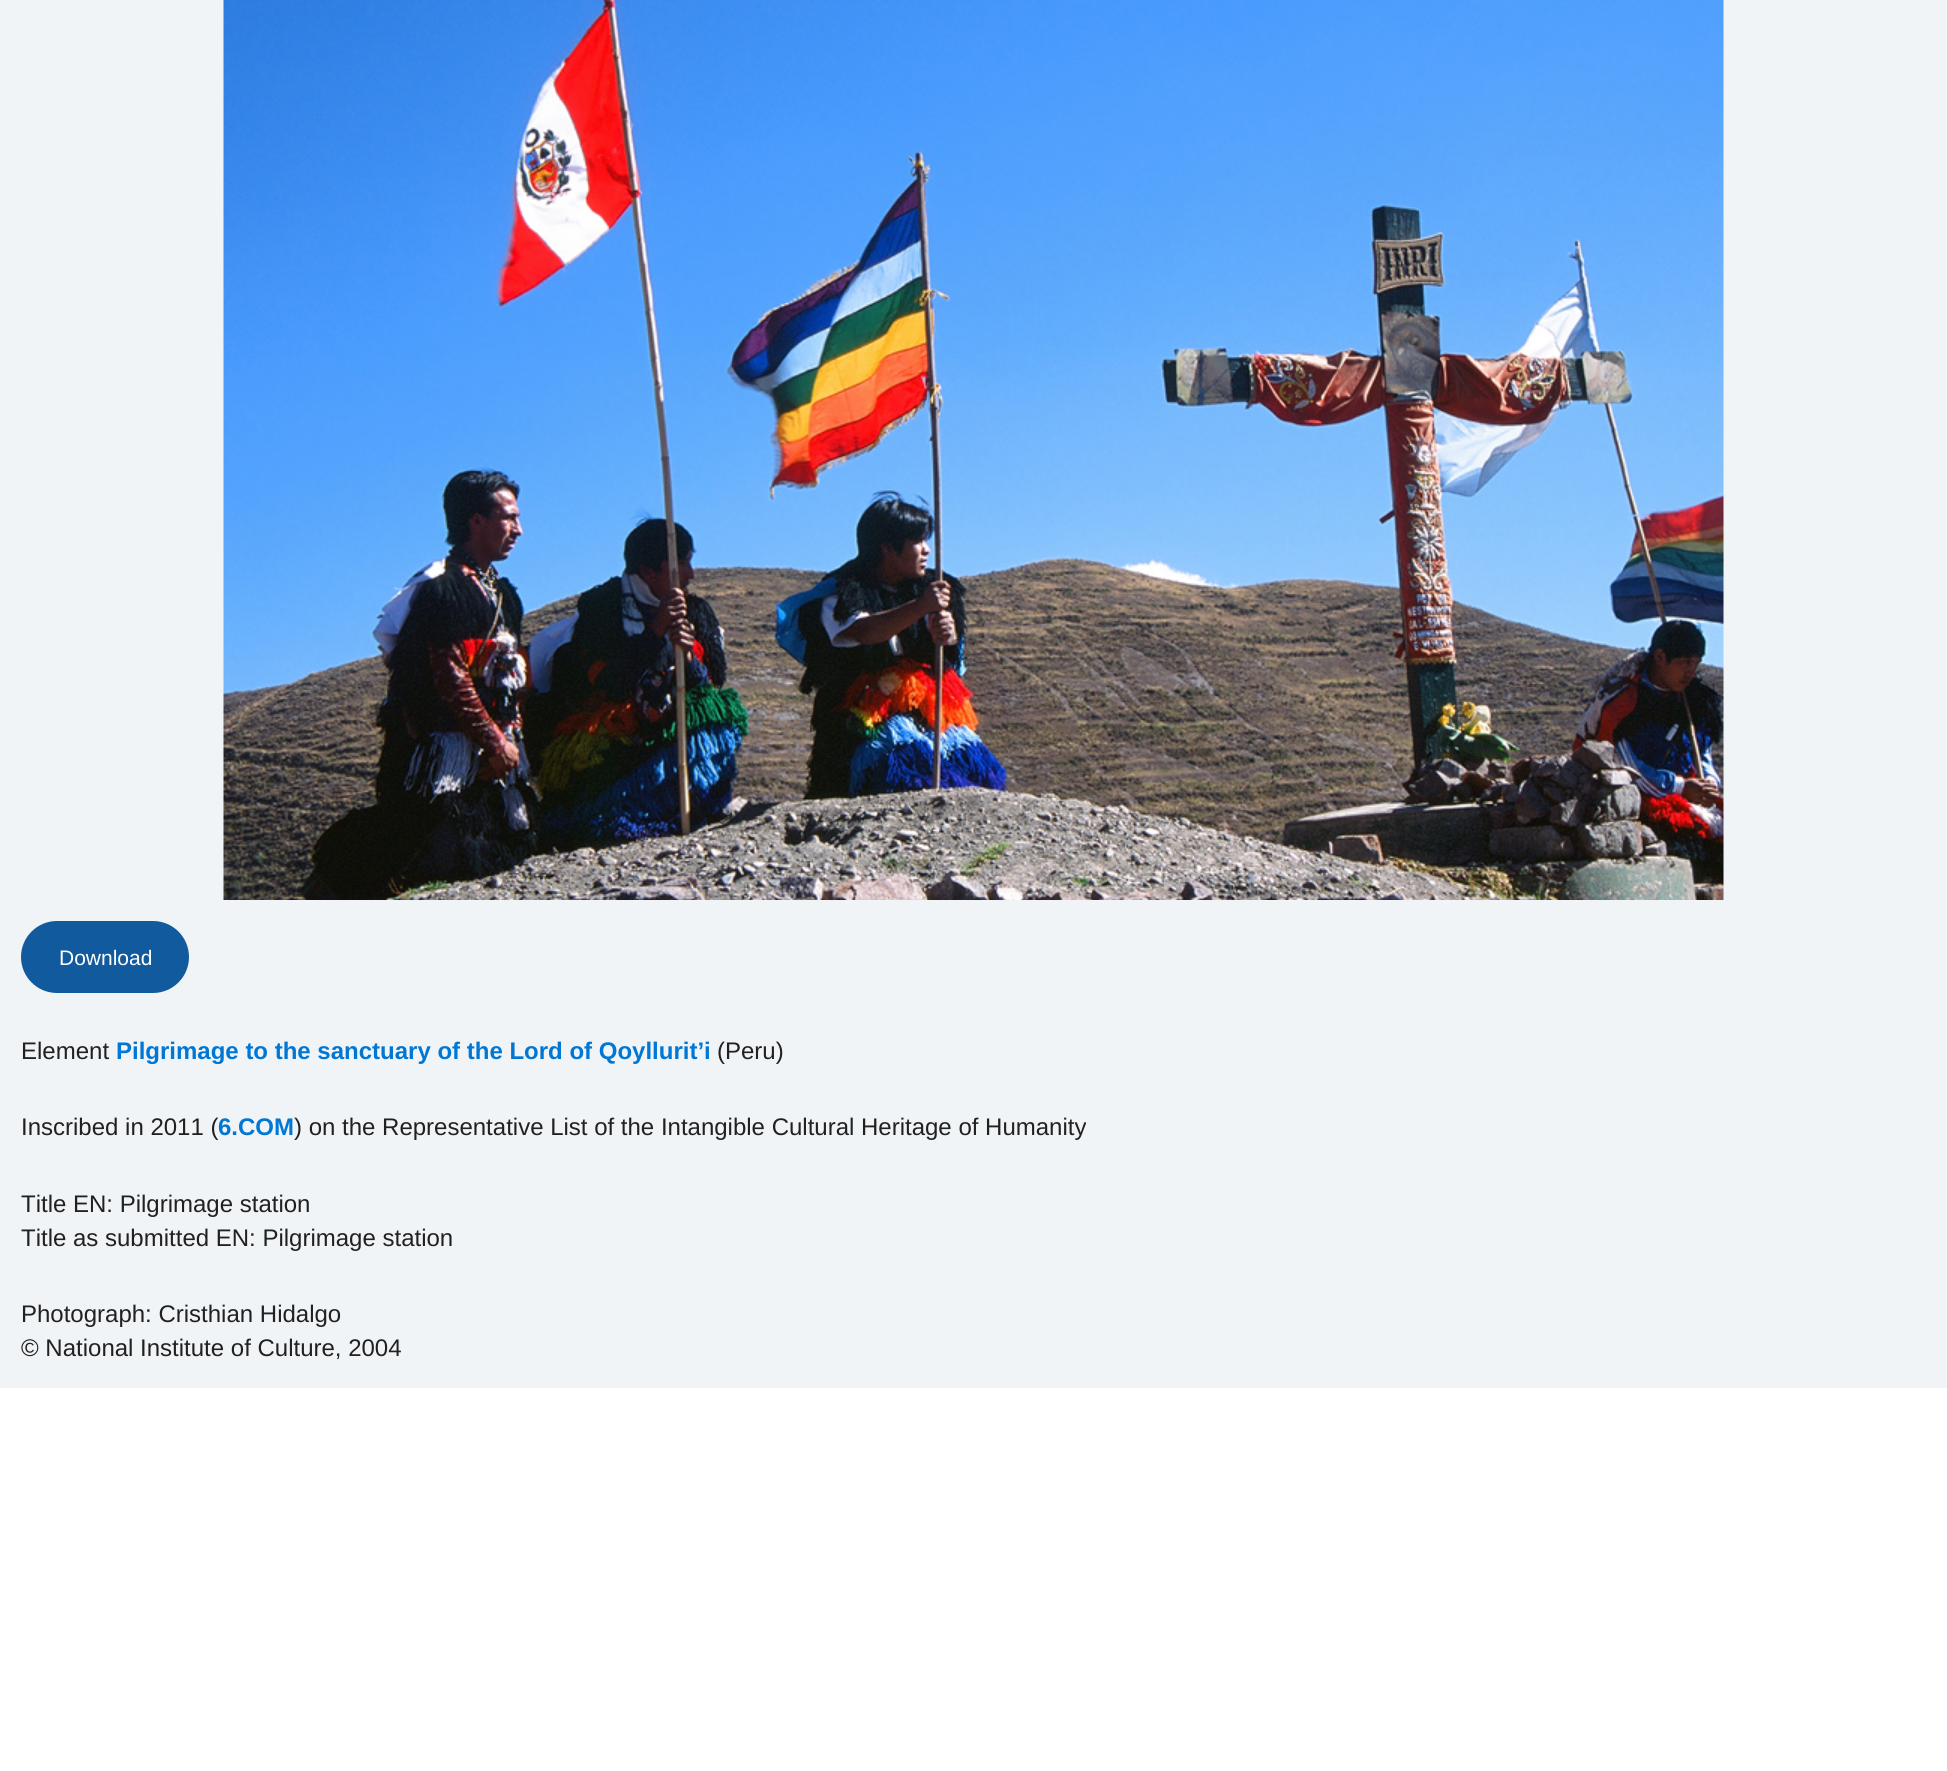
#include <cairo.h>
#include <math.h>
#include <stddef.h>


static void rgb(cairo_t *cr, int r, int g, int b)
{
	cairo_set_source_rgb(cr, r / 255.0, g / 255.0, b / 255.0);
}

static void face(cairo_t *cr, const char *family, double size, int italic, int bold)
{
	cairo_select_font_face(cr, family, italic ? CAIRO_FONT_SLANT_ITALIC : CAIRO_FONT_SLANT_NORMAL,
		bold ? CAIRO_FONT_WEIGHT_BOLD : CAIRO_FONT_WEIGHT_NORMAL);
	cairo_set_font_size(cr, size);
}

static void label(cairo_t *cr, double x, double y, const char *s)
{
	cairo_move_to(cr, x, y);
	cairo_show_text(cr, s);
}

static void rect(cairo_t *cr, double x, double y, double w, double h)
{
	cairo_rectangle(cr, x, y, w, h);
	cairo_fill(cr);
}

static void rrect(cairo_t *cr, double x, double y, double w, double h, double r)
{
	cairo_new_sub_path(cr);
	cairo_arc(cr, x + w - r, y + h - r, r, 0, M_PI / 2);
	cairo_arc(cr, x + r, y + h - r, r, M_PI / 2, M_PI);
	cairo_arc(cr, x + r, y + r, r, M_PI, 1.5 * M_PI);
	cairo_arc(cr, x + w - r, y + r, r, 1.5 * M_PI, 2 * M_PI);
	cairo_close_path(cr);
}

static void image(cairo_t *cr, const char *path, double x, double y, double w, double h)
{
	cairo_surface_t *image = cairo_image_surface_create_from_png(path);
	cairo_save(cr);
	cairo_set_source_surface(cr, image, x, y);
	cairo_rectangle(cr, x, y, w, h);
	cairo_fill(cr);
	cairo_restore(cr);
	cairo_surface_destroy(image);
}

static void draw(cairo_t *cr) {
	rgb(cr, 255, 255, 255);
	cairo_paint(cr);
	rgb(cr, 241, 244, 246);
	rect(cr, 0, 0, 1947, 1388);
	image(cr, "image0.png", 223, 0, 1501, 900);
	rgb(cr, 17, 90, 158);
	rrect(cr, 21, 921, 168, 72, 36);
	cairo_fill(cr);
	face(cr, "Liberation Sans", 21, 0, 0);
	rgb(cr, 255, 255, 255);
	label(cr, 59, 965, "Download");
	face(cr, "Liberation Sans", 24, 0, 0);
	rgb(cr, 33, 33, 33);
	label(cr, 21, 1059, "Element");
	face(cr, "Liberation Sans", 24, 0, 1);
	rgb(cr, 0, 119, 212);
	label(cr, 116, 1059, "Pilgrimage to the sanctuary of the Lord of Qoyllurit’i");
	face(cr, "Liberation Sans", 24, 0, 0);
	rgb(cr, 33, 33, 33);
	label(cr, 717, 1059, "(Peru)");
	label(cr, 21, 1135, "Inscribed in 2011 (");
	face(cr, "Liberation Sans", 24, 0, 1);
	rgb(cr, 0, 119, 212);
	label(cr, 218, 1135, "6.COM");
	face(cr, "Liberation Sans", 24, 0, 0);
	rgb(cr, 33, 33, 33);
	label(cr, 294, 1135, ") on the Representative List of the Intangible Cultural Heritage of Humanity");
	label(cr, 21, 1212, "Title EN: Pilgrimage station");
	label(cr, 21, 1246, "Title as submitted EN: Pilgrimage station");
	label(cr, 21, 1322, "Photograph: Cristhian Hidalgo");
	label(cr, 21, 1356, "© National Institute of Culture, 2004");
}

int main(void) {
	cairo_surface_t *surface = cairo_image_surface_create(CAIRO_FORMAT_RGB24, 1947, 1771);
	cairo_t *cr = cairo_create(surface);
	cairo_font_options_t *options = cairo_font_options_create();
	cairo_font_options_set_hint_metrics(options, CAIRO_HINT_METRICS_OFF);
	cairo_font_options_set_hint_style(options, CAIRO_HINT_STYLE_NONE);
	cairo_set_font_options(cr, options);
	cairo_set_miter_limit(cr, 4);
	draw(cr);
	cairo_surface_write_to_png(surface, "render.png");
	cairo_font_options_destroy(options);
	cairo_destroy(cr);
	cairo_surface_destroy(surface);
	return 0;
}
